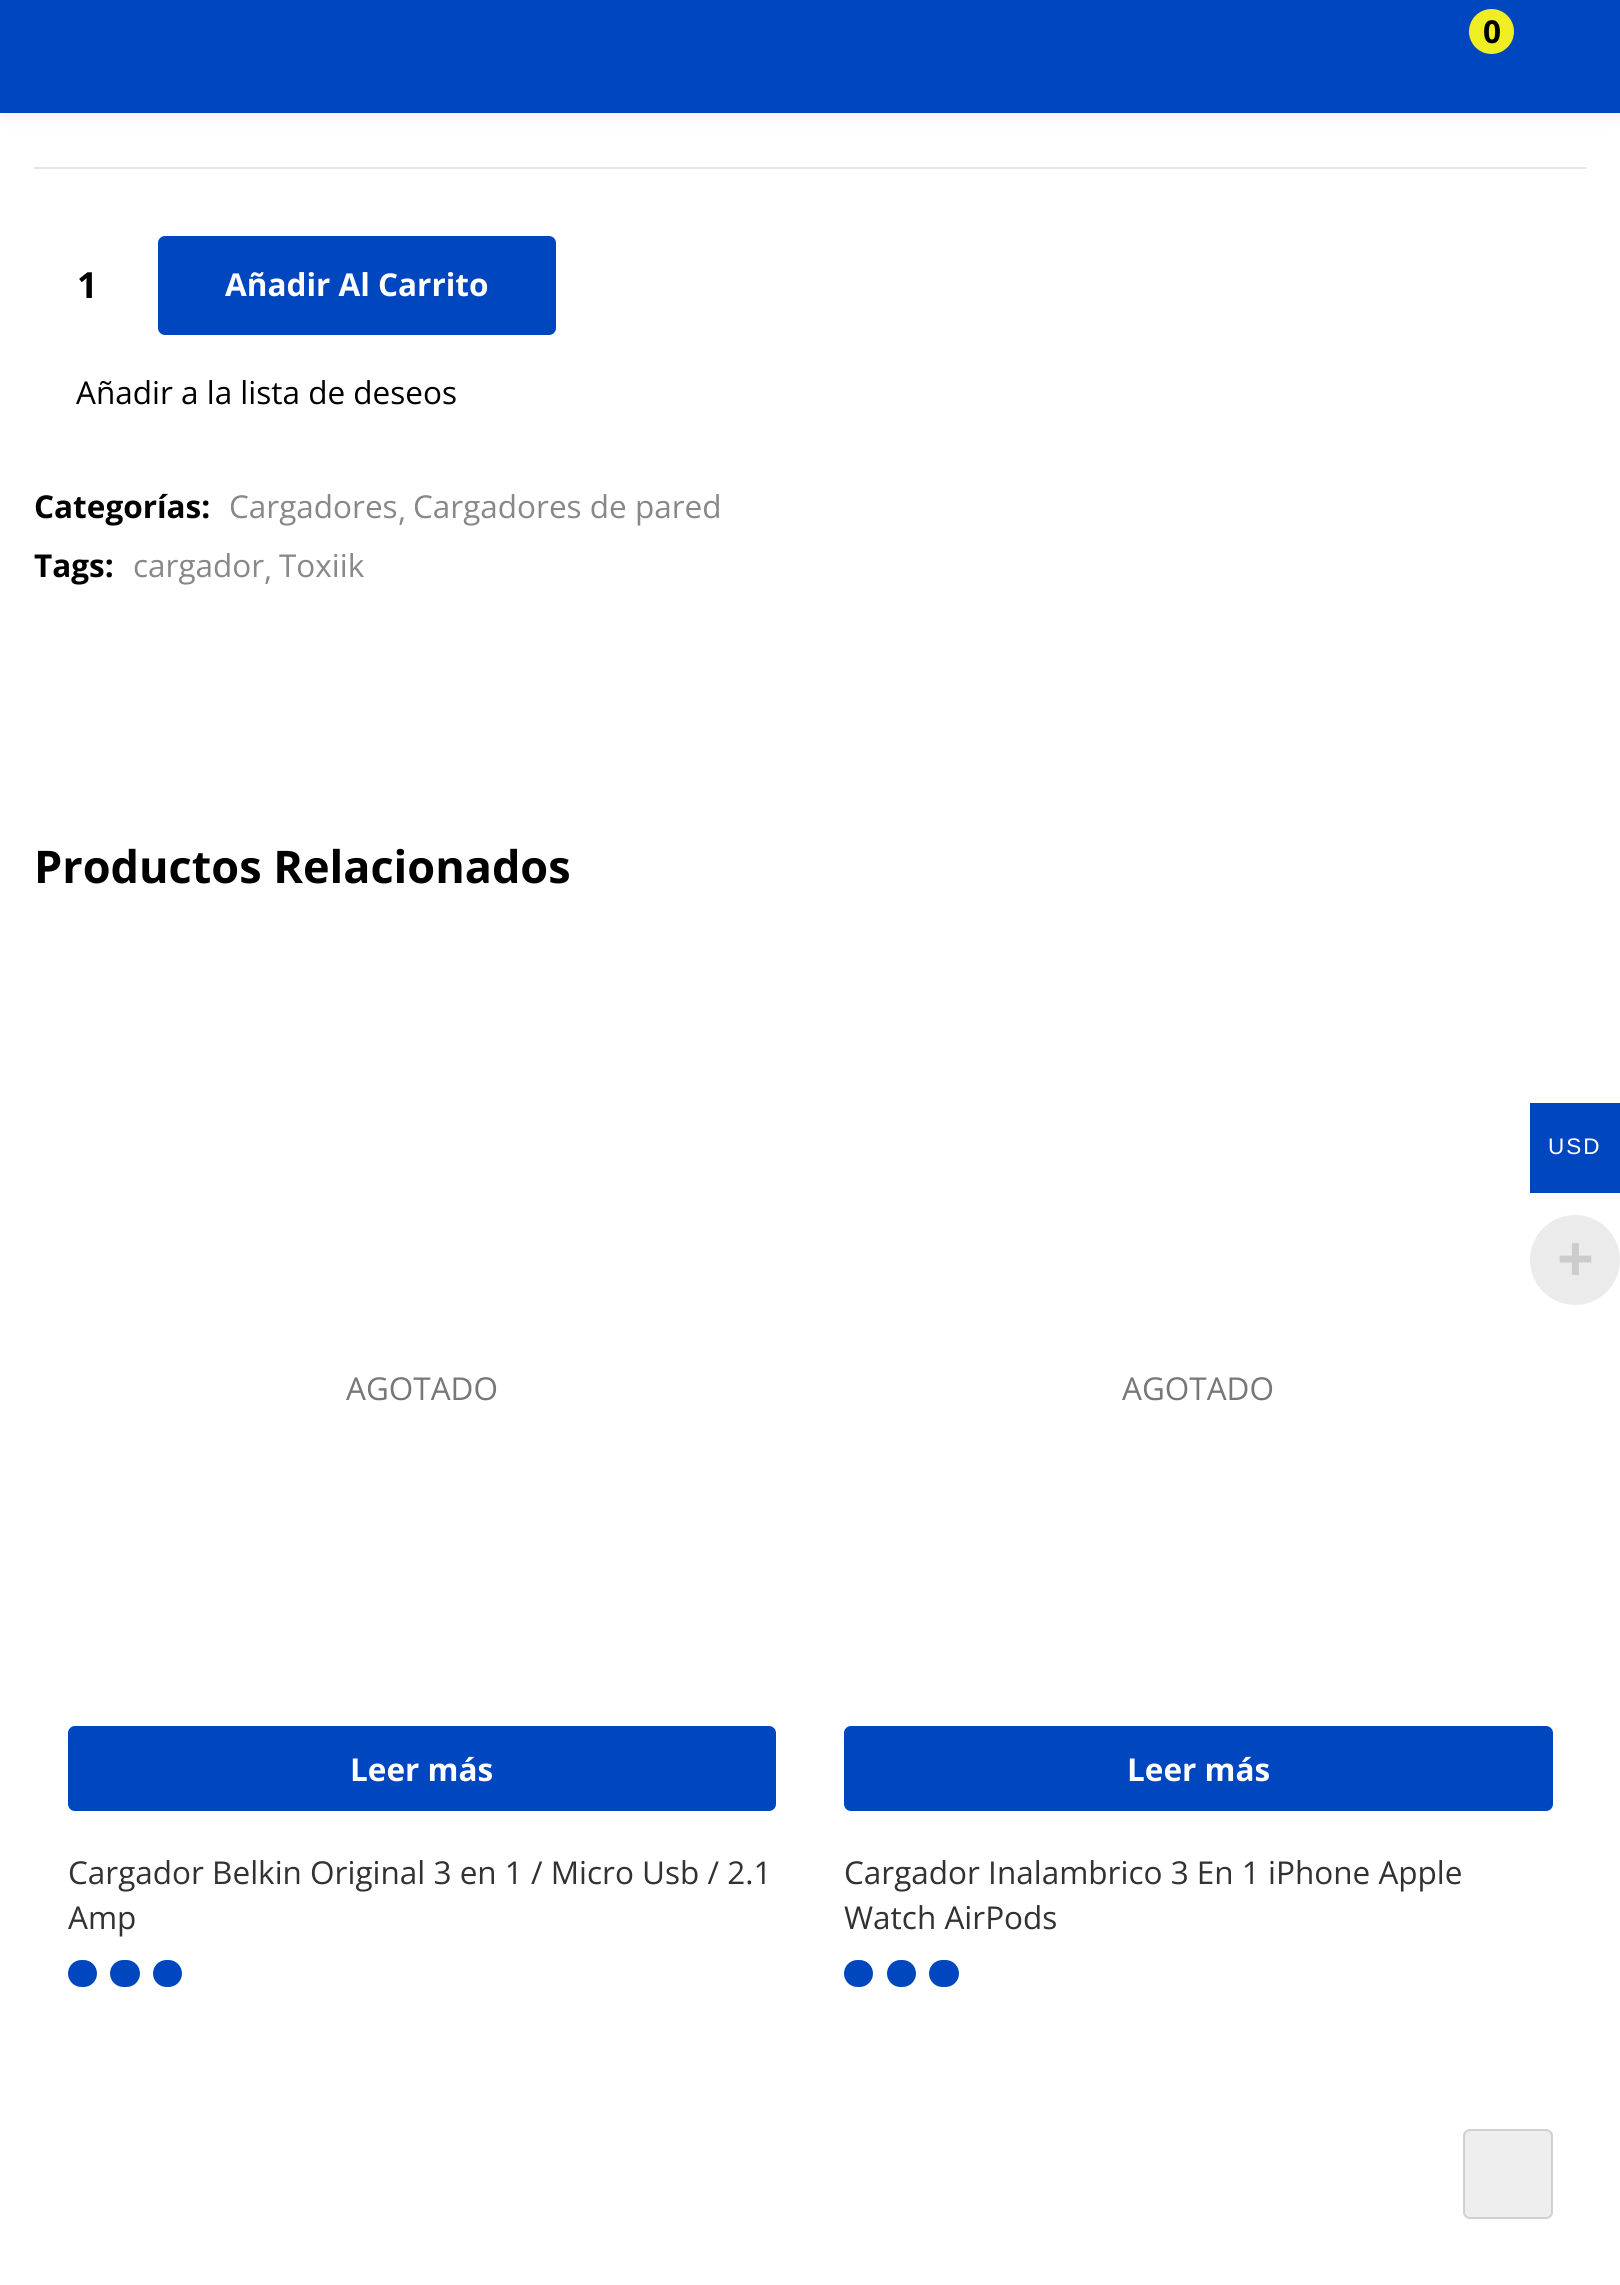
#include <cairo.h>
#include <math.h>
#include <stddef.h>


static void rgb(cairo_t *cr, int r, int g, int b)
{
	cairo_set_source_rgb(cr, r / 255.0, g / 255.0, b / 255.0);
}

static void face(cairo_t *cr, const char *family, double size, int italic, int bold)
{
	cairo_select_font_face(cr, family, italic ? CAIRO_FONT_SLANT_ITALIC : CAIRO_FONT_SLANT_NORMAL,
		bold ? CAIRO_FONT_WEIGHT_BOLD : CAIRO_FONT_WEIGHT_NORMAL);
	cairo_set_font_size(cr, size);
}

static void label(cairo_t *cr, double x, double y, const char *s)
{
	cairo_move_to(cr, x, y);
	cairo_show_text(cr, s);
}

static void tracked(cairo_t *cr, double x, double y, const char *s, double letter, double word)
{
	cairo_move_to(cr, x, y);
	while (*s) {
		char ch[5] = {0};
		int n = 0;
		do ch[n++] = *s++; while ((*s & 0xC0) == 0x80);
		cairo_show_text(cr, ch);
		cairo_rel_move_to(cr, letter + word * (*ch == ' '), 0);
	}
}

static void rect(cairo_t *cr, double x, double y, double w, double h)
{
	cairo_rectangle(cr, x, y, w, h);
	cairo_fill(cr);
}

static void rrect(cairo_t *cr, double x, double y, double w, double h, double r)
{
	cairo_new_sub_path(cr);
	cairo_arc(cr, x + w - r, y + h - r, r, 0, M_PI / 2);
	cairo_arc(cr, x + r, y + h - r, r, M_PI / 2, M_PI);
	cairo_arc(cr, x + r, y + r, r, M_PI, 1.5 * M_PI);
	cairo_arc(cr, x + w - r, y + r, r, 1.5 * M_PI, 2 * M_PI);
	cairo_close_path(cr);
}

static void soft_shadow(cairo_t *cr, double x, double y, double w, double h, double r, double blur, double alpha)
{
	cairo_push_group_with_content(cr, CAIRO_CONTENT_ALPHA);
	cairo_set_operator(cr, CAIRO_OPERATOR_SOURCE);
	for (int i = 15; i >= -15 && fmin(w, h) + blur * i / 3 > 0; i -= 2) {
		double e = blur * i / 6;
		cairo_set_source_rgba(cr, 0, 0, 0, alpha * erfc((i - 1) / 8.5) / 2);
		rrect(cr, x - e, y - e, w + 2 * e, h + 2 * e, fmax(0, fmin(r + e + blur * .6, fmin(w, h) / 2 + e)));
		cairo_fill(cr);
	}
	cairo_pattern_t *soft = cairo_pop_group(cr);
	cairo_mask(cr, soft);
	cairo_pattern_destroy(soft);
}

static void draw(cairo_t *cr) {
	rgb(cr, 255, 255, 255);
	cairo_paint(cr);
	rgb(cr, 0, 0, 0);
	soft_shadow(cr, 0, 0, 1620, 113, 0, 9, 0.1);
	rgb(cr, 0, 70, 190);
	rect(cr, 0, 0, 1620, 113);
	rgb(cr, 238, 238, 34);
	cairo_arc(cr, 1491.5, 31.5, 22.5, 0, 2 * M_PI);
	cairo_fill(cr);
	face(cr, "Open Sans", 31.5, 0, 1);
	rgb(cr, 0, 0, 0);
	label(cr, 1483, 43, "0");
	rgb(cr, 229, 229, 229);
	rect(cr, 34, 167, 1552, 2);
	face(cr, "Open Sans", 36, 0, 1);
	rgb(cr, 0, 0, 0);
	label(cr, 77, 298, "1");
	rgb(cr, 0, 70, 190);
	rrect(cr, 158, 236, 398, 99, 7);
	cairo_fill(cr);
	face(cr, "Open Sans", 31.5, 0, 1);
	rgb(cr, 255, 255, 255);
	label(cr, 225, 296, "Añadir Al Carrito");
	face(cr, "Open Sans", 31.5, 0, 0);
	rgb(cr, 0, 0, 0);
	label(cr, 76, 404, "Añadir a la lista de deseos");
	face(cr, "Open Sans", 31.5, 0, 1);
	label(cr, 34, 518, "Categorías:");
	face(cr, "Open Sans", 31.5, 0, 0);
	rgb(cr, 136, 136, 136);
	label(cr, 229, 518, "Cargadores");
	label(cr, 398, 521, ",");
	label(cr, 413, 518, "Cargadores de pared");
	face(cr, "Open Sans", 31.5, 0, 1);
	rgb(cr, 0, 0, 0);
	label(cr, 34, 577, "Tags:");
	face(cr, "Open Sans", 31.5, 0, 0);
	rgb(cr, 136, 136, 136);
	label(cr, 133, 577, "cargador");
	label(cr, 279, 577, "Toxiik");
	label(cr, 264, 580, ",");
	face(cr, "Open Sans", 45, 0, 1);
	rgb(cr, 0, 0, 0);
	label(cr, 34, 883, "Productos Relacionados");
	face(cr, "Open Sans", 31.5, 0, 0);
	rgb(cr, 119, 119, 119);
	label(cr, 346, 1400, "AGOTADO");
	rgb(cr, 0, 70, 190);
	rrect(cr, 68, 1726, 708, 85, 7);
	cairo_fill(cr);
	face(cr, "Open Sans", 31.5, 0, 1);
	rgb(cr, 255, 255, 255);
	label(cr, 350, 1781, "Leer más");
	face(cr, "Open Sans", 31.5, 0, 0);
	rgb(cr, 50, 50, 50);
	label(cr, 68, 1884, "Cargador Belkin Original 3 en 1 / Micro Usb / 2.1");
	label(cr, 68, 1929, "Amp");
	rgb(cr, 0, 70, 190);
	rrect(cr, 110, 1960, 30, 27, 13.5);
	cairo_fill(cr);
	rrect(cr, 68, 1960, 29, 27, 13.5);
	cairo_fill(cr);
	rrect(cr, 153, 1960, 29, 27, 13.5);
	cairo_fill(cr);
	rgb(cr, 119, 119, 119);
	label(cr, 1122, 1400, "AGOTADO");
	rgb(cr, 0, 70, 190);
	rrect(cr, 844, 1726, 709, 85, 7);
	cairo_fill(cr);
	face(cr, "Open Sans", 31.5, 0, 1);
	rgb(cr, 255, 255, 255);
	label(cr, 1127, 1781, "Leer más");
	face(cr, "Open Sans", 31.5, 0, 0);
	rgb(cr, 50, 50, 50);
	label(cr, 844, 1884, "Cargador Inalambrico 3 En 1 iPhone Apple");
	label(cr, 844, 1929, "Watch AirPods");
	rgb(cr, 0, 70, 190);
	rrect(cr, 887, 1960, 29, 27, 13.5);
	cairo_fill(cr);
	rrect(cr, 844, 1960, 29, 27, 13.5);
	cairo_fill(cr);
	rrect(cr, 929, 1960, 30, 27, 13.5);
	cairo_fill(cr);
	rgb(cr, 238, 238, 238);
	rrect(cr, 1464, 2130, 88, 88, 6);
	cairo_fill_preserve(cr);
	rgb(cr, 208, 208, 208);
	cairo_stroke(cr);
	rgb(cr, 0, 70, 190);
	rect(cr, 1530, 1103, 90, 90);
	face(cr, "Liberation Sans", 22.5, 0, 0);
	rgb(cr, 255, 255, 255);
	tracked(cr, 1548, 1154, "USD", 2, 0);
	rgb(cr, 235, 235, 235);
	cairo_new_path(cr);
	cairo_arc(cr, 1575, 1260, 45, 0, 2 * M_PI);
	cairo_fill(cr);
	face(cr, "Liberation Sans", 63, 0, 1);
	rgb(cr, 204, 204, 204);
	label(cr, 1557, 1280, "+");
}

int main(void) {
	cairo_surface_t *surface = cairo_image_surface_create(CAIRO_FORMAT_RGB24, 1620, 2285);
	cairo_t *cr = cairo_create(surface);
	cairo_font_options_t *options = cairo_font_options_create();
	cairo_font_options_set_hint_metrics(options, CAIRO_HINT_METRICS_OFF);
	cairo_font_options_set_hint_style(options, CAIRO_HINT_STYLE_NONE);
	cairo_set_font_options(cr, options);
	cairo_set_miter_limit(cr, 4);
	draw(cr);
	cairo_surface_write_to_png(surface, "render.png");
	cairo_font_options_destroy(options);
	cairo_destroy(cr);
	cairo_surface_destroy(surface);
	return 0;
}
